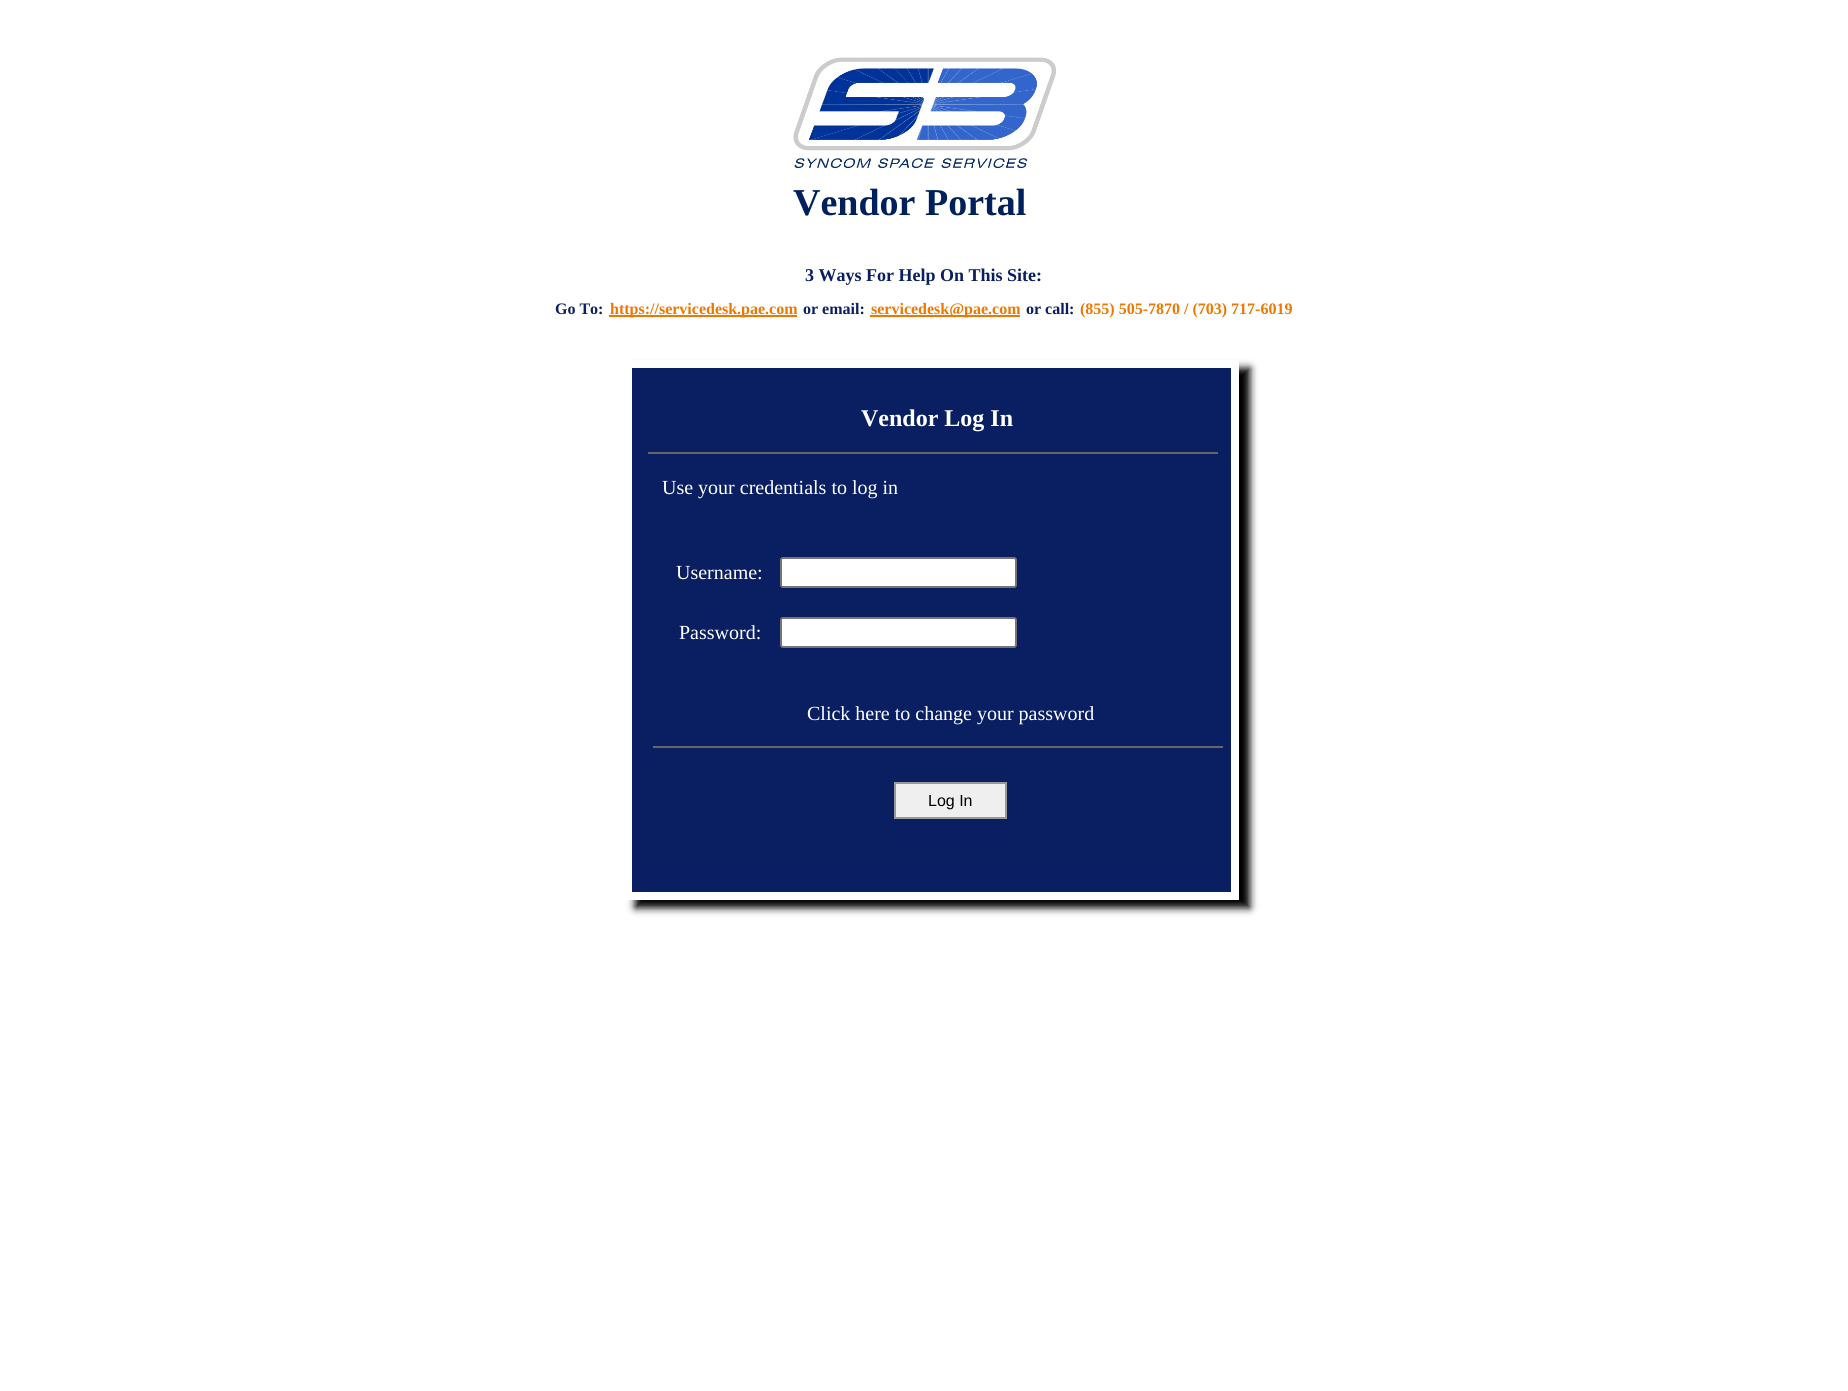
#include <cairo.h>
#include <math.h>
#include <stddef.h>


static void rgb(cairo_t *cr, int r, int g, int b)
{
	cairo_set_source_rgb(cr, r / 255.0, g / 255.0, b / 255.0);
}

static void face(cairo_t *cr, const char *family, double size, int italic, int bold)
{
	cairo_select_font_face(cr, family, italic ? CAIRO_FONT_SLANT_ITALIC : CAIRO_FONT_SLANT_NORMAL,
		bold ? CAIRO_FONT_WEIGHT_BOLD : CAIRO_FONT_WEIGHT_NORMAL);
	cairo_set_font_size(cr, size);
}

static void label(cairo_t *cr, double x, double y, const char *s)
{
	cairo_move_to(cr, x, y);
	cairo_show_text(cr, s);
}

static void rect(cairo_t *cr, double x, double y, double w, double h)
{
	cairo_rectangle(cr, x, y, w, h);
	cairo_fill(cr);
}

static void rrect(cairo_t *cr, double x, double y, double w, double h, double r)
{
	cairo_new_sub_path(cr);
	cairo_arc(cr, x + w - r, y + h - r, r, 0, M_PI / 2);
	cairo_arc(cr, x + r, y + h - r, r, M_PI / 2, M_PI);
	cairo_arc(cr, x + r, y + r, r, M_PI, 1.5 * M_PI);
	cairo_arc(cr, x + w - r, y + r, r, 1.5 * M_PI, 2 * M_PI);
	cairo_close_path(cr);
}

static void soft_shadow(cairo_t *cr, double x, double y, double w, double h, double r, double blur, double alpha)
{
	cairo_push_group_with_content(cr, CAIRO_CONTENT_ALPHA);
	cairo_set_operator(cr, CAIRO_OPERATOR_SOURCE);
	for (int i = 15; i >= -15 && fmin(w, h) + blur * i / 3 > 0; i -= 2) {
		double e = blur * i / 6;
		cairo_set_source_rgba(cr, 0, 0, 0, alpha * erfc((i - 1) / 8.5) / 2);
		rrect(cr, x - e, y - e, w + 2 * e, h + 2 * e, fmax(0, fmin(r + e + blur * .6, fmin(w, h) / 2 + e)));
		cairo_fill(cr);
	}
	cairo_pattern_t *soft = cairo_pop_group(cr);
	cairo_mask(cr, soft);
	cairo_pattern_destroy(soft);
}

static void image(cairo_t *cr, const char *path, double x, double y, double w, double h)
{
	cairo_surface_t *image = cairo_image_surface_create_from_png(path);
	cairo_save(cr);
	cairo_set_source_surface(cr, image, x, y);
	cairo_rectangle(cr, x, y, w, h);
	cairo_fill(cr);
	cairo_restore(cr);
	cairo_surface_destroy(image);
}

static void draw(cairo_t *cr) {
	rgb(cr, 255, 255, 255);
	cairo_paint(cr);
	image(cr, "image0.png", 793, 57, 263, 112);
	face(cr, "Liberation Serif", 38, 0, 1);
	rgb(cr, 0, 32, 91);
	label(cr, 793, 215, "Vendor Portal");
	face(cr, "Liberation Serif", 18, 0, 1);
	rgb(cr, 10, 31, 98);
	label(cr, 805, 281, "3 Ways For Help On This Site:");
	face(cr, "Liberation Serif", 16, 0, 1);
	label(cr, 555, 314, "Go To:");
	rgb(cr, 238, 119, 0);
	rect(cr, 609, 315, 188, 2);
	label(cr, 610, 314, "https://servicedesk.pae.com");
	rgb(cr, 10, 31, 98);
	label(cr, 803, 314, "or email:");
	rgb(cr, 238, 119, 0);
	rect(cr, 870, 315, 150, 2);
	label(cr, 871, 314, "servicedesk@pae.com");
	rgb(cr, 10, 31, 98);
	label(cr, 1026, 314, "or call:");
	rgb(cr, 238, 119, 0);
	label(cr, 1080, 314, "(855) 505-7870 / (703) 717-6019");
	rgb(cr, 0, 0, 0);
	soft_shadow(cr, 635, 368, 615, 540, 0, 4, 1);
	rgb(cr, 10, 31, 98);
	cairo_rectangle(cr, 628, 364, 607, 532);
	cairo_fill_preserve(cr);
	rgb(cr, 255, 255, 255);
	cairo_set_line_width(cr, 8);
	cairo_stroke(cr);
	face(cr, "Liberation Serif", 24, 0, 1);
	label(cr, 861, 426, "Vendor Log In");
	rgb(cr, 102, 102, 102);
	rect(cr, 648, 452, 570, 2);
	face(cr, "Liberation Serif", 20, 0, 0);
	rgb(cr, 255, 255, 255);
	label(cr, 662, 494, "Use your credentials to log in");
	label(cr, 676, 579, "Username:");
	rrect(cr, 781, 558, 235, 29, 2);
	cairo_fill_preserve(cr);
	rgb(cr, 118, 118, 118);
	cairo_set_line_width(cr, 2);
	cairo_stroke(cr);
	rgb(cr, 255, 255, 255);
	label(cr, 679, 639, "Password:");
	rrect(cr, 781, 618, 235, 29, 2);
	cairo_fill_preserve(cr);
	rgb(cr, 118, 118, 118);
	cairo_stroke(cr);
	rgb(cr, 255, 255, 255);
	label(cr, 807, 720, "Click here to change your password");
	rgb(cr, 102, 102, 102);
	rect(cr, 653, 746, 570, 2);
	rgb(cr, 239, 239, 239);
	cairo_rectangle(cr, 895, 783, 111, 35);
	cairo_fill_preserve(cr);
	rgb(cr, 153, 153, 153);
	cairo_stroke(cr);
	face(cr, "Liberation Sans", 16, 0, 0);
	rgb(cr, 0, 0, 0);
	label(cr, 928, 806, "Log In");
}

int main(void) {
	cairo_surface_t *surface = cairo_image_surface_create(CAIRO_FORMAT_RGB24, 1848, 1391);
	cairo_t *cr = cairo_create(surface);
	cairo_font_options_t *options = cairo_font_options_create();
	cairo_font_options_set_hint_metrics(options, CAIRO_HINT_METRICS_OFF);
	cairo_font_options_set_hint_style(options, CAIRO_HINT_STYLE_NONE);
	cairo_set_font_options(cr, options);
	cairo_set_miter_limit(cr, 4);
	draw(cr);
	cairo_surface_write_to_png(surface, "render.png");
	cairo_font_options_destroy(options);
	cairo_destroy(cr);
	cairo_surface_destroy(surface);
	return 0;
}
